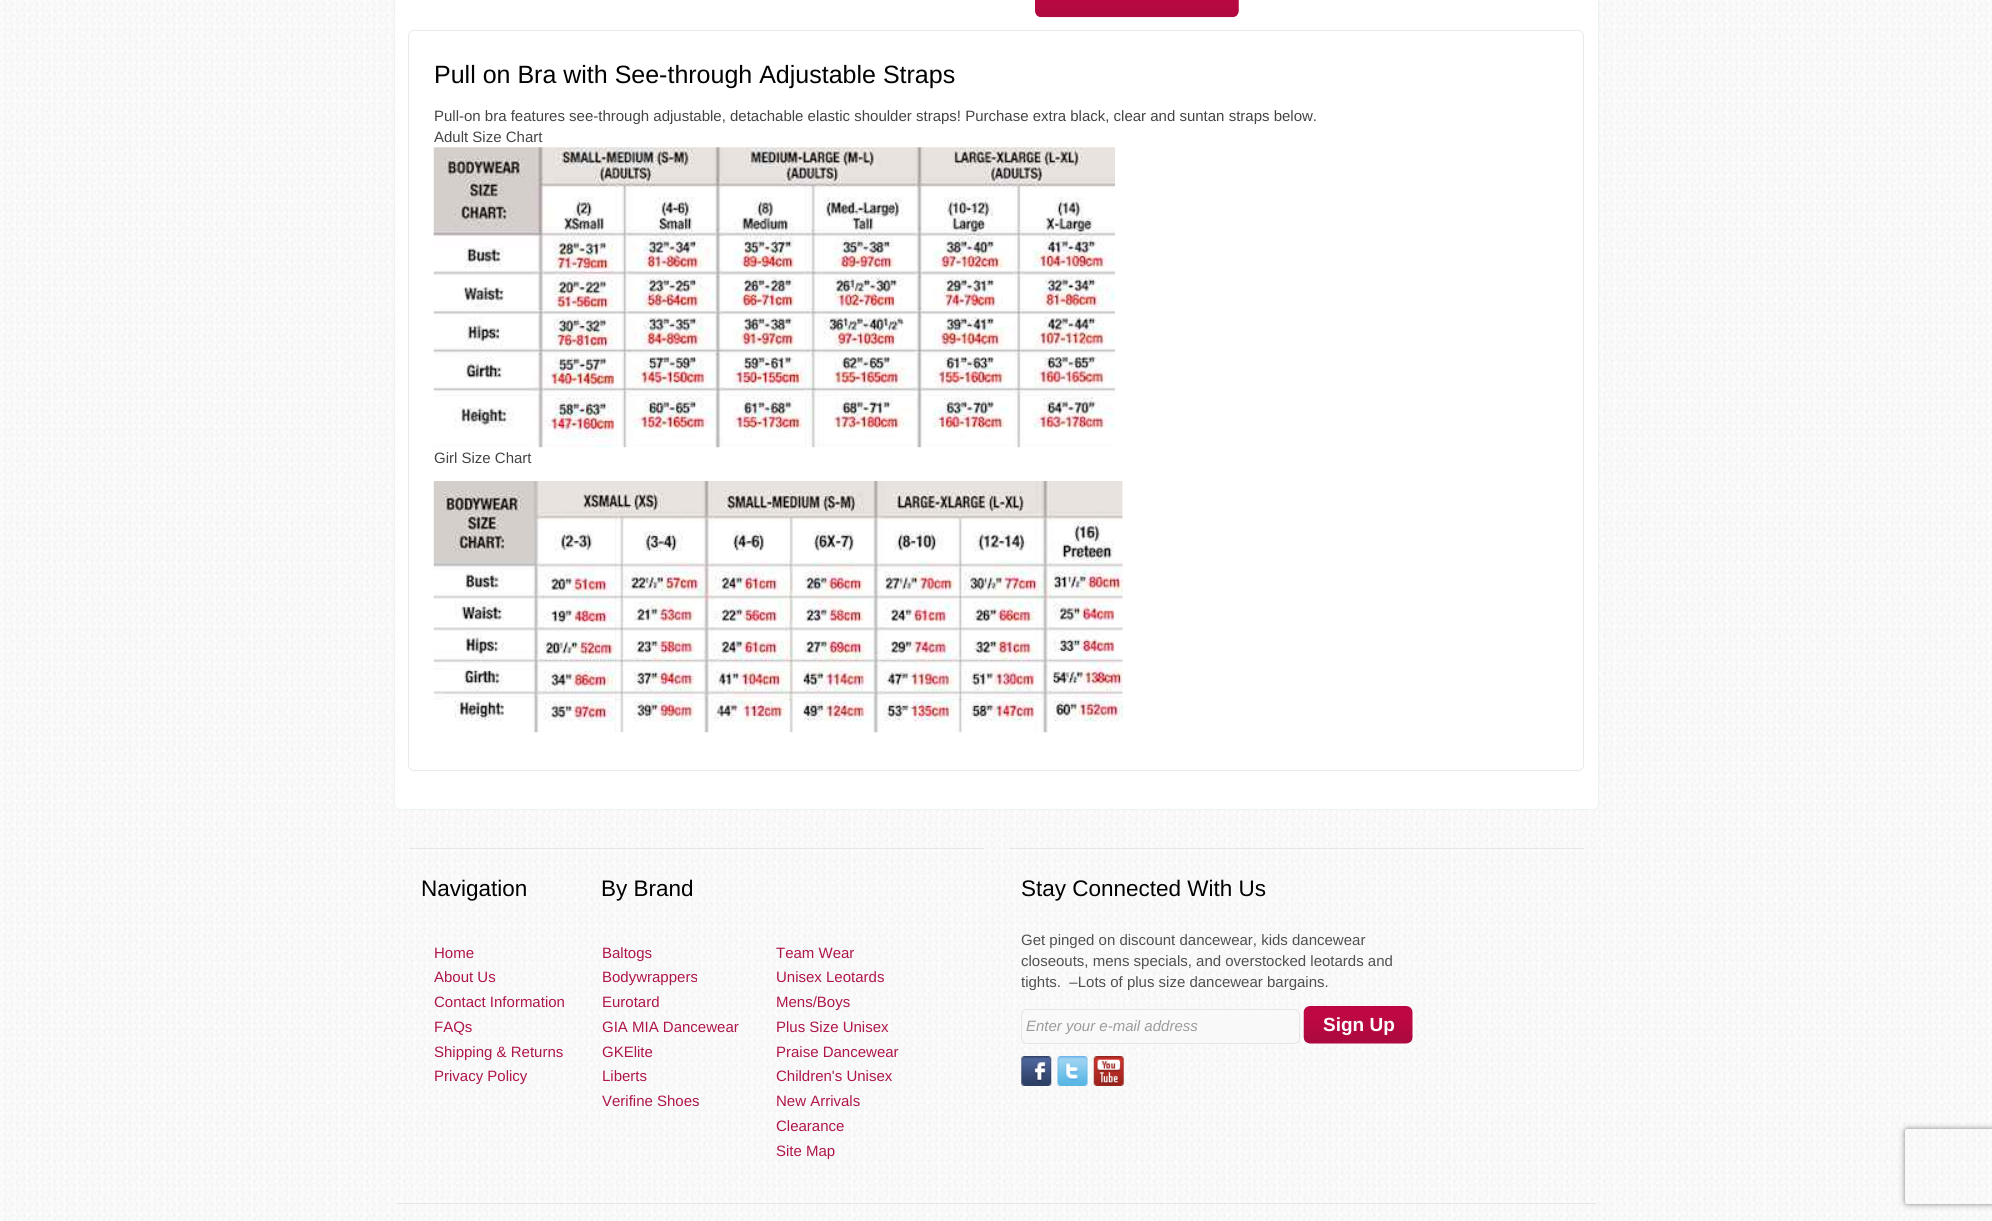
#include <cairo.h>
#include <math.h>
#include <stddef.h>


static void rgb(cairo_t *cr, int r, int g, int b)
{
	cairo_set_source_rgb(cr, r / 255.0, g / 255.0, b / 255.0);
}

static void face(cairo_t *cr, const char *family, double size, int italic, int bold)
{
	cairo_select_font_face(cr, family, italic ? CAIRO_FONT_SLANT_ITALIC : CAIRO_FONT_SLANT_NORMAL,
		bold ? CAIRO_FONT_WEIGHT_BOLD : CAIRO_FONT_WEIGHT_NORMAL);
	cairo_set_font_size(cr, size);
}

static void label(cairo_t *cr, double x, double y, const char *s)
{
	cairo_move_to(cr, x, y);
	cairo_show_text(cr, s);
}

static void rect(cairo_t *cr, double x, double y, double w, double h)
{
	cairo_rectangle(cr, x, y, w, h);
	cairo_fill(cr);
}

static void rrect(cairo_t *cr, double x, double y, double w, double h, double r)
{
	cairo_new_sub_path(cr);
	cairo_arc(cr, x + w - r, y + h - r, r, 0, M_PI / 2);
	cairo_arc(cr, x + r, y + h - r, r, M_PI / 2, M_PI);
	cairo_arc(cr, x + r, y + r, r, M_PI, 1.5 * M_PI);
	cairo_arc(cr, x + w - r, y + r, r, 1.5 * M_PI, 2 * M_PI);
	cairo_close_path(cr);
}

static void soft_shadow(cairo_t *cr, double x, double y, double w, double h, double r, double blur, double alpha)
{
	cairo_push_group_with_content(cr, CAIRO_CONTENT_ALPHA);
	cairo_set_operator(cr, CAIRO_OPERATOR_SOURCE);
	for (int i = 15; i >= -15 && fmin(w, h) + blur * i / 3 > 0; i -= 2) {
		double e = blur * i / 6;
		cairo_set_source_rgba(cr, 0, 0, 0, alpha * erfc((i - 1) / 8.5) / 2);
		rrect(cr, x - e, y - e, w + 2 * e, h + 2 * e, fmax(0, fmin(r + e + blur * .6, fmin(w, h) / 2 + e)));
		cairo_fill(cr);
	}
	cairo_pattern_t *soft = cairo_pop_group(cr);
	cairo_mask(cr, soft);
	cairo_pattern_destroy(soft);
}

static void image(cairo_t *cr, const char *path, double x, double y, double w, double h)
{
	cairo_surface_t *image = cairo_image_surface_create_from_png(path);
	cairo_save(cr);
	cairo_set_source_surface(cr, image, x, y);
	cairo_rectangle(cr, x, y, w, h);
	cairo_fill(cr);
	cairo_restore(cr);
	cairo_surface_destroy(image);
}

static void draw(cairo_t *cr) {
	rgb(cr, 255, 255, 255);
	cairo_paint(cr);
	image(cr, "image0.png", 0, 0, 1992, 1221);
	rgb(cr, 255, 255, 255);
	rrect(cr, 394.5, -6.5, 1204, 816, 5.5);
	cairo_fill_preserve(cr);
	rgb(cr, 235, 243, 247);
	cairo_set_line_width(cr, 1);
	cairo_stroke(cr);
	image(cr, "image1.png", 1035, 0, 204, 18);
	rrect(cr, 408.5, 30.5, 1175, 740, 5.5);
	rgb(cr, 233, 233, 233);
	cairo_stroke(cr);
	face(cr, "Liberation Sans", 25, 0, 0);
	rgb(cr, 0, 0, 0);
	label(cr, 434, 83, "Pull on Bra with See-through Adjustable Straps");
	face(cr, "Liberation Sans", 15, 0, 0);
	rgb(cr, 68, 68, 68);
	label(cr, 434, 121, "Pull-on bra features see-through adjustable, detachable elastic shoulder straps! Purchase extra black, clear and suntan straps below.");
	label(cr, 434, 142, "Adult Size Chart");
	image(cr, "image2.png", 433, 147, 682, 301);
	label(cr, 434, 463, "Girl Size Chart");
	image(cr, "image3.png", 433, 481, 690, 252);
	rgb(cr, 231, 231, 231);
	rect(cr, 409, 848, 575, 1);
	face(cr, "Liberation Sans", 22.5, 0, 0);
	rgb(cr, 0, 0, 0);
	label(cr, 421, 896, "Navigation");
	label(cr, 601, 896, "By Brand");
	face(cr, "Liberation Sans", 15, 0, 0);
	rgb(cr, 175, 22, 72);
	label(cr, 434, 958, "Home");
	label(cr, 434, 982, "About Us");
	label(cr, 434, 1007, "Contact Information");
	label(cr, 434, 1032, "FAQs");
	label(cr, 434, 1057, "Shipping & Returns");
	label(cr, 434, 1081, "Privacy Policy");
	label(cr, 602, 958, "Baltogs");
	label(cr, 602, 982, "Bodywrappers");
	label(cr, 602, 1007, "Eurotard");
	label(cr, 602, 1032, "GIA MIA Dancewear");
	label(cr, 602, 1057, "GKElite");
	label(cr, 602, 1081, "Liberts");
	label(cr, 602, 1106, "Verifine Shoes");
	label(cr, 776, 958, "Team Wear");
	label(cr, 776, 982, "Unisex Leotards");
	label(cr, 776, 1007, "Mens/Boys");
	label(cr, 776, 1032, "Plus Size Unisex");
	label(cr, 776, 1057, "Praise Dancewear");
	label(cr, 776, 1081, "Children's Unisex");
	label(cr, 776, 1106, "New Arrivals");
	label(cr, 776, 1131, "Clearance");
	label(cr, 776, 1156, "Site Map");
	rgb(cr, 231, 231, 231);
	rect(cr, 1009, 848, 575, 1);
	face(cr, "Liberation Sans", 22.5, 0, 0);
	rgb(cr, 0, 0, 0);
	label(cr, 1021, 896, "Stay Connected With Us");
	face(cr, "Liberation Sans", 15, 0, 0);
	rgb(cr, 80, 80, 80);
	label(cr, 1021, 945, "Get pinged on discount dancewear, kids dancewear");
	label(cr, 1021, 966, "closeouts, mens specials, and overstocked leotards and");
	label(cr, 1021, 987, "tights.  –Lots of plus size dancewear bargains.");
	rgb(cr, 249, 249, 249);
	rrect(cr, 1021.5, 1009.5, 278, 34, 5.5);
	cairo_fill_preserve(cr);
	rgb(cr, 229, 229, 229);
	cairo_stroke(cr);
	face(cr, "Liberation Sans", 15, 1, 0);
	rgb(cr, 156, 156, 156);
	label(cr, 1026, 1031, "Enter your e-mail address");
	image(cr, "image4.png", 1303, 1006, 110, 38);
	face(cr, "Liberation Sans", 19, 0, 1);
	rgb(cr, 255, 255, 255);
	label(cr, 1323, 1031, "Sign Up");
	image(cr, "image5.png", 1021, 1056, 31, 30);
	image(cr, "image6.png", 1057, 1056, 31, 30);
	image(cr, "image7.png", 1093, 1056, 31, 30);
	rgb(cr, 231, 231, 231);
	rect(cr, 396, 1203, 1200, 1);
	cairo_save(cr);
	cairo_set_fill_rule(cr, CAIRO_FILL_RULE_EVEN_ODD);
	cairo_new_path(cr);
	cairo_move_to(cr, 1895, 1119);
	cairo_line_to(cr, 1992, 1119);
	cairo_line_to(cr, 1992, 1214);
	cairo_line_to(cr, 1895, 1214);
	cairo_close_path(cr);
	cairo_move_to(cr, 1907.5, 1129);
	cairo_line_to(cr, 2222.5, 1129);
	cairo_curve_to(cr, 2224, 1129, 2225, 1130, 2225, 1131.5);
	cairo_line_to(cr, 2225, 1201.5);
	cairo_curve_to(cr, 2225, 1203, 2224, 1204, 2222.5, 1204);
	cairo_line_to(cr, 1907.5, 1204);
	cairo_curve_to(cr, 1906, 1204, 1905, 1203, 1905, 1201.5);
	cairo_line_to(cr, 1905, 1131.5);
	cairo_curve_to(cr, 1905, 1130, 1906, 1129, 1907.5, 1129);
	cairo_close_path(cr);
	cairo_clip(cr);
	rgb(cr, 128, 128, 128);
	soft_shadow(cr, 1905, 1129, 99, 75, 2.5, 3, 1);
	cairo_restore(cr);
}

int main(void) {
	cairo_surface_t *surface = cairo_image_surface_create(CAIRO_FORMAT_RGB24, 1992, 1221);
	cairo_t *cr = cairo_create(surface);
	cairo_font_options_t *options = cairo_font_options_create();
	cairo_font_options_set_hint_metrics(options, CAIRO_HINT_METRICS_OFF);
	cairo_font_options_set_hint_style(options, CAIRO_HINT_STYLE_NONE);
	cairo_set_font_options(cr, options);
	cairo_set_miter_limit(cr, 4);
	draw(cr);
	cairo_surface_write_to_png(surface, "render.png");
	cairo_font_options_destroy(options);
	cairo_destroy(cr);
	cairo_surface_destroy(surface);
	return 0;
}
